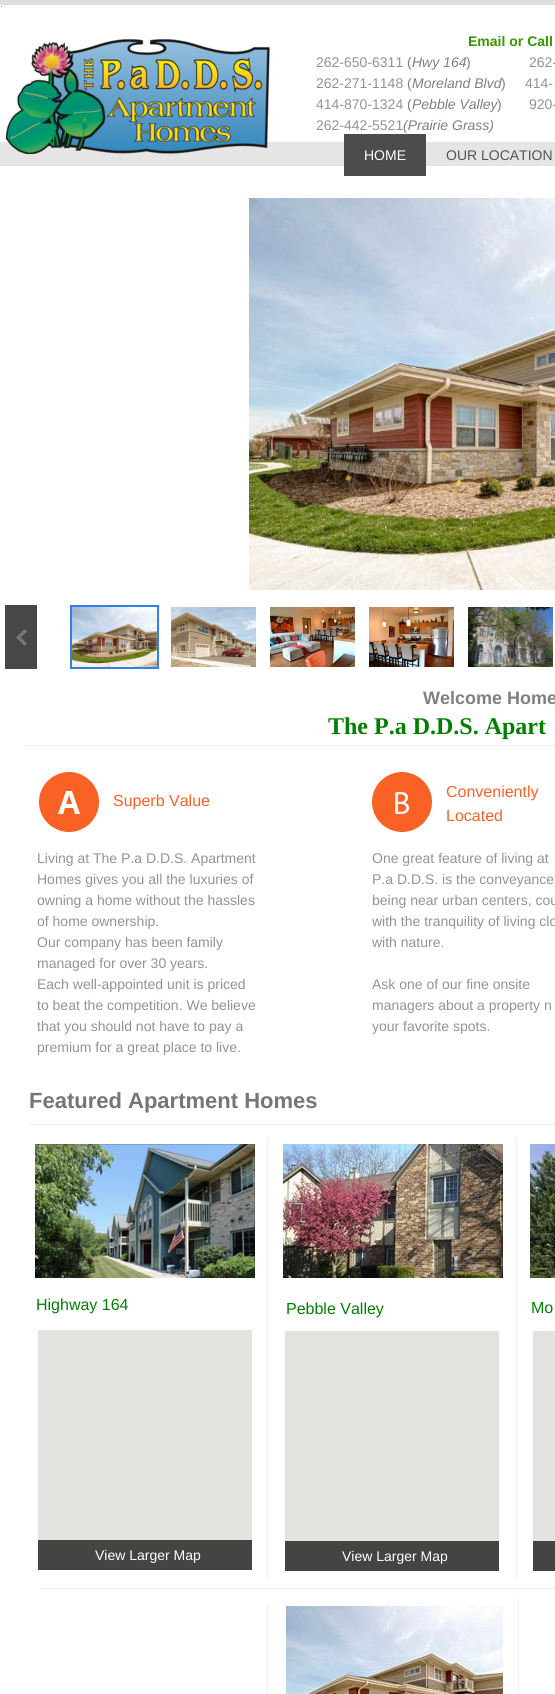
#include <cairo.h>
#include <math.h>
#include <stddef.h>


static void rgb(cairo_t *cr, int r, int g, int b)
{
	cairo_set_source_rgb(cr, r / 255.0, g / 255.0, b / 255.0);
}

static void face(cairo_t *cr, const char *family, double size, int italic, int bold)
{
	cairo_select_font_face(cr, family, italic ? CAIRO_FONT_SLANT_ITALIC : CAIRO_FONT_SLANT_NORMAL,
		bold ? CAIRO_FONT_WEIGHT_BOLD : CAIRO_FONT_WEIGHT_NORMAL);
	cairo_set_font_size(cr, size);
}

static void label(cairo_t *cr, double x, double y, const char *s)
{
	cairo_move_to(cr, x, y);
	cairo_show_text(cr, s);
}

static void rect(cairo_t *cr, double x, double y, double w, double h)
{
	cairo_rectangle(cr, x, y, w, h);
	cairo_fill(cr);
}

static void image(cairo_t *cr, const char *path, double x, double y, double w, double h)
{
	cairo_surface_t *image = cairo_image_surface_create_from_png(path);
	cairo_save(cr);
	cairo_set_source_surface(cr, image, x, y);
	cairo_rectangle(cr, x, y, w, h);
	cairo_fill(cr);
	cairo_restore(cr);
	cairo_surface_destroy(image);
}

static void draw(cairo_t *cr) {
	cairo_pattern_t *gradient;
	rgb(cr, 255, 255, 255);
	cairo_paint(cr);
	gradient = cairo_pattern_create_linear(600, 0, 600, 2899);
	cairo_pattern_add_color_stop_rgba(gradient, 0, 0.867, 0.867, 0.867, 1);
	cairo_pattern_add_color_stop_rgba(gradient, 1, 0.933, 0.933, 0.933, 1);
	cairo_set_source(cr, gradient);
	cairo_pattern_destroy(gradient);
	rect(cr, 0, 0, 555, 5);
	rgb(cr, 163, 129, 84);
	rect(cr, 1, 6, 1, 1);
	rgb(cr, 229, 229, 229);
	rect(cr, 0, 142, 555, 24);
	image(cr, "image0.png", 6, 39, 264, 115);
	face(cr, "Liberation Sans", 14, 0, 1);
	rgb(cr, 51, 153, 0);
	label(cr, 468, 46, "Email or Call");
	face(cr, "Liberation Sans", 14, 0, 0);
	rgb(cr, 148, 147, 147);
	label(cr, 316, 67, "262-650-6311");
	rgb(cr, 128, 128, 128);
	label(cr, 407, 67, "(");
	face(cr, "Liberation Sans", 14, 1, 0);
	label(cr, 412, 67, "Hwy 164");
	face(cr, "Liberation Sans", 14, 0, 0);
	label(cr, 466, 67, ")");
	rgb(cr, 148, 147, 147);
	label(cr, 529, 67, "262-");
	label(cr, 316, 88, "262-271-1148");
	rgb(cr, 128, 128, 128);
	label(cr, 407, 88, "(");
	face(cr, "Liberation Sans", 14, 1, 0);
	label(cr, 412, 88, "Moreland Blvd");
	face(cr, "Liberation Sans", 14, 0, 0);
	label(cr, 501, 88, ")");
	rgb(cr, 148, 147, 147);
	label(cr, 525, 88, "414-");
	label(cr, 316, 109, "414-870-1324");
	rgb(cr, 128, 128, 128);
	label(cr, 407, 109, "(");
	face(cr, "Liberation Sans", 14, 1, 0);
	label(cr, 412, 109, "Pebble Valley");
	face(cr, "Liberation Sans", 14, 0, 0);
	label(cr, 497, 109, ")");
	rgb(cr, 148, 147, 147);
	label(cr, 529, 109, "920-");
	label(cr, 316, 130, "262-442-5521");
	face(cr, "Liberation Sans", 14, 1, 0);
	rgb(cr, 128, 128, 128);
	label(cr, 403, 130, "(Prairie Grass)");
	rgb(cr, 76, 76, 76);
	rect(cr, 344, 134, 82, 42);
	face(cr, "Liberation Sans", 14, 0, 0);
	rgb(cr, 255, 255, 255);
	label(cr, 364, 160, "HOME");
	rgb(cr, 86, 84, 84);
	label(cr, 446, 160, "OUR LOCATION");
	image(cr, "image1.png", 249, 198, 306, 392);
	rgb(cr, 71, 71, 71);
	rect(cr, 5, 605, 32, 64);
	image(cr, "image2.png", 16, 629, 11, 17);
	rgb(cr, 49, 130, 230);
	rect(cr, 70, 605, 89, 64);
	image(cr, "image3.png", 72, 607, 85, 60);
	image(cr, "image4.png", 171, 607, 85, 60);
	image(cr, "image5.png", 270, 607, 85, 60);
	image(cr, "image6.png", 369, 607, 85, 60);
	image(cr, "image7.png", 468, 607, 85, 60);
	face(cr, "Liberation Sans", 18, 0, 1);
	rgb(cr, 128, 128, 128);
	label(cr, 423, 704, "Welcome Home");
	face(cr, "Liberation Serif", 24, 0, 1);
	rgb(cr, 0, 128, 0);
	label(cr, 328, 734, "The P.a D.D.S. Apart");
	rgb(cr, 238, 238, 238);
	rect(cr, 24, 745, 531, 1);
	image(cr, "image8.png", 39, 772, 60, 60);
	face(cr, "Liberation Sans", 16, 0, 0);
	rgb(cr, 249, 97, 37);
	label(cr, 113, 806, "Superb Value");
	image(cr, "image9.png", 372, 772, 60, 60);
	label(cr, 446, 797, "Conveniently");
	label(cr, 446, 821, "Located");
	face(cr, "Liberation Sans", 14, 0, 0);
	rgb(cr, 148, 147, 147);
	label(cr, 37, 863, "Living at The P.a D.D.S. Apartment");
	label(cr, 37, 884, "Homes gives you all the luxuries of");
	label(cr, 37, 905, "owning a home without the hassles");
	label(cr, 37, 926, "of home ownership.");
	label(cr, 37, 947, "Our company has been family");
	label(cr, 37, 968, "managed for over 30 years.");
	label(cr, 37, 989, "Each well-appointed unit is priced");
	label(cr, 37, 1010, "to beat the competition. We believe");
	label(cr, 37, 1031, "that you should not have to pay a");
	label(cr, 37, 1052, "premium for a great place to live.");
	label(cr, 372, 863, "One great feature of living at");
	label(cr, 372, 884, "P.a D.D.S. is the conveyance");
	label(cr, 372, 905, "being near urban centers, cou");
	label(cr, 372, 926, "with the tranquility of living clo");
	label(cr, 372, 947, "with nature.");
	label(cr, 372, 989, "Ask one of our fine onsite");
	label(cr, 372, 1010, "managers about a property n");
	label(cr, 372, 1031, "your favorite spots.");
	face(cr, "Liberation Sans", 22, 0, 1);
	rgb(cr, 118, 118, 118);
	label(cr, 29, 1108, "Featured Apartment Homes");
	rgb(cr, 238, 238, 238);
	rect(cr, 29, 1124, 526, 1);
	image(cr, "image10.png", 35, 1144, 220, 134);
	rect(cr, 267, 1138, 1, 441);
	image(cr, "image11.png", 283, 1144, 220, 134);
	rect(cr, 516, 1138, 1, 441);
	image(cr, "image12.png", 530, 1144, 25, 134);
	face(cr, "Liberation Sans", 16, 0, 0);
	rgb(cr, 0, 128, 0);
	label(cr, 36, 1310, "Highway 164");
	label(cr, 286, 1314, "Pebble Valley");
	label(cr, 531, 1313, "Mo");
	rgb(cr, 229, 227, 223);
	rect(cr, 38, 1330, 214, 210);
	rgb(cr, 69, 68, 67);
	rect(cr, 38, 1540, 214, 30);
	face(cr, "Liberation Sans", 14, 0, 0);
	rgb(cr, 255, 255, 255);
	label(cr, 95, 1560, "View Larger Map");
	rgb(cr, 229, 227, 223);
	rect(cr, 285, 1331, 214, 210);
	rgb(cr, 69, 68, 67);
	rect(cr, 285, 1541, 214, 30);
	rgb(cr, 255, 255, 255);
	label(cr, 342, 1561, "View Larger Map");
	rgb(cr, 229, 227, 223);
	rect(cr, 533, 1331, 22, 210);
	rgb(cr, 69, 68, 67);
	rect(cr, 533, 1541, 22, 30);
	rgb(cr, 238, 238, 238);
	rect(cr, 40, 1588, 515, 1);
	rect(cr, 267, 1604, 1, 90);
	image(cr, "image13.png", 286, 1606, 217, 88);
	rect(cr, 518, 1598, 1, 96);
}

int main(void) {
	cairo_surface_t *surface = cairo_image_surface_create(CAIRO_FORMAT_RGB24, 555, 1694);
	cairo_t *cr = cairo_create(surface);
	cairo_font_options_t *options = cairo_font_options_create();
	cairo_font_options_set_hint_metrics(options, CAIRO_HINT_METRICS_OFF);
	cairo_font_options_set_hint_style(options, CAIRO_HINT_STYLE_NONE);
	cairo_set_font_options(cr, options);
	cairo_set_miter_limit(cr, 4);
	draw(cr);
	cairo_surface_write_to_png(surface, "render.png");
	cairo_font_options_destroy(options);
	cairo_destroy(cr);
	cairo_surface_destroy(surface);
	return 0;
}
